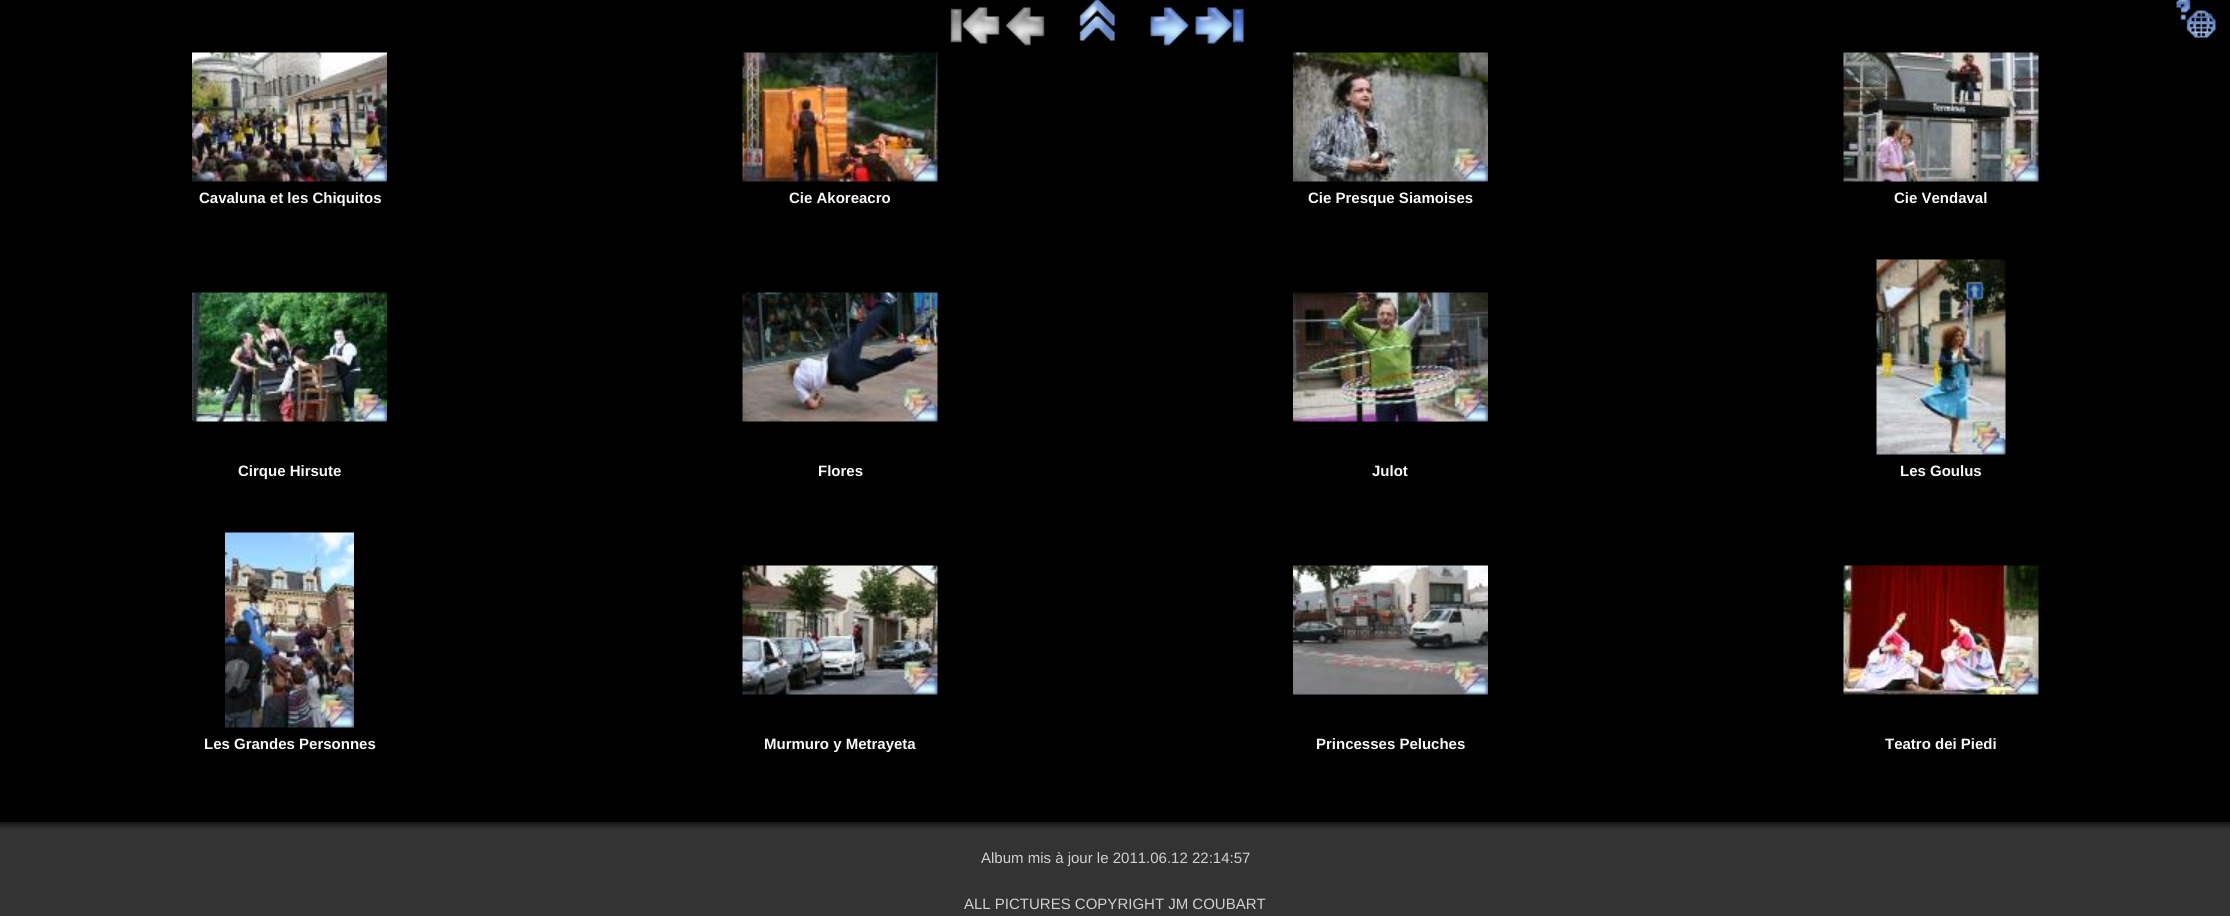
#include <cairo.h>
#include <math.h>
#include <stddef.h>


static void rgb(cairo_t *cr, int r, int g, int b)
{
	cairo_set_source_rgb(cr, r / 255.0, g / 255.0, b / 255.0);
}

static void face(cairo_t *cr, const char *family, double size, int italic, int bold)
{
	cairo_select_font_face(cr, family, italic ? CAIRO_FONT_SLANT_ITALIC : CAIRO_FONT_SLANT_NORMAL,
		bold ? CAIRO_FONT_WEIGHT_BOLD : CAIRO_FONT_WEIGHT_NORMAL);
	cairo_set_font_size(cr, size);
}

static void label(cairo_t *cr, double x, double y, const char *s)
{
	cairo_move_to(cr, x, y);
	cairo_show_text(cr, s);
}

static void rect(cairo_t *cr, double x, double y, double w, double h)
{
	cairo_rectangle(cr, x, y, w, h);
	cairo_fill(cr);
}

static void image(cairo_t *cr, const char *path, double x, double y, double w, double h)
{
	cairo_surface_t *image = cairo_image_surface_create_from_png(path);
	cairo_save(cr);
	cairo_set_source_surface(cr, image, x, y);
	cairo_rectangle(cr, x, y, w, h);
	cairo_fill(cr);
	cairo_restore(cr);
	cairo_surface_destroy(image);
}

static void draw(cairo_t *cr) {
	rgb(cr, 51, 51, 51);
	cairo_paint(cr);
	rgb(cr, 0, 0, 0);
	rect(cr, 0, 0, 2230, 822);
	image(cr, "image0.png", 950, 7, 50, 37);
	image(cr, "image1.png", 1006, 7, 39, 39);
	image(cr, "image2.png", 1079, 0, 36, 41);
	image(cr, "image3.png", 1150, 7, 39, 39);
	image(cr, "image4.png", 1195, 7, 49, 37);
	image(cr, "image5.png", 2176, 0, 40, 38);
	image(cr, "image6.png", 192, 52, 195, 130);
	image(cr, "image7.png", 742, 52, 196, 130);
	image(cr, "image8.png", 1293, 52, 195, 130);
	image(cr, "image9.png", 1843, 52, 196, 130);
	face(cr, "Liberation Sans", 15, 0, 1);
	rgb(cr, 250, 250, 250);
	label(cr, 199, 203, "Cavaluna et les Chiquitos");
	label(cr, 789, 203, "Cie Akoreacro");
	label(cr, 1308, 203, "Cie Presque Siamoises");
	label(cr, 1894, 203, "Cie Vendaval");
	image(cr, "image10.png", 192, 292, 195, 130);
	image(cr, "image11.png", 742, 292, 196, 130);
	image(cr, "image12.png", 1293, 292, 195, 130);
	image(cr, "image13.png", 1876, 259, 130, 196);
	label(cr, 238, 476, "Cirque Hirsute");
	label(cr, 818, 476, "Flores");
	label(cr, 1372, 476, "Julot");
	label(cr, 1900, 476, "Les Goulus");
	image(cr, "image14.png", 225, 532, 129, 196);
	image(cr, "image15.png", 742, 565, 196, 130);
	image(cr, "image16.png", 1293, 565, 195, 130);
	image(cr, "image17.png", 1843, 565, 196, 130);
	label(cr, 204, 749, "Les Grandes Personnes");
	label(cr, 764, 749, "Murmuro y Metrayeta");
	label(cr, 1316, 749, "Princesses Peluches");
	label(cr, 1885, 749, "Teatro dei Piedi");
	rgb(cr, 25, 25, 25);
	rect(cr, 0, 822, 2230, 2);
	rgb(cr, 31, 31, 31);
	rect(cr, 0, 824, 2230, 1);
	rgb(cr, 38, 38, 38);
	rect(cr, 0, 825, 2230, 2);
	rgb(cr, 43, 43, 43);
	rect(cr, 0, 827, 2230, 1);
	rgb(cr, 47, 47, 47);
	rect(cr, 0, 828, 2230, 2);
	face(cr, "Liberation Sans", 15, 0, 0);
	rgb(cr, 208, 208, 208);
	label(cr, 981, 863, "Album mis à jour le 2011.06.12 22:14:57");
	label(cr, 964, 909, "ALL PICTURES COPYRIGHT JM COUBART");
}

int main(void) {
	cairo_surface_t *surface = cairo_image_surface_create(CAIRO_FORMAT_RGB24, 2230, 916);
	cairo_t *cr = cairo_create(surface);
	cairo_font_options_t *options = cairo_font_options_create();
	cairo_font_options_set_hint_metrics(options, CAIRO_HINT_METRICS_OFF);
	cairo_font_options_set_hint_style(options, CAIRO_HINT_STYLE_NONE);
	cairo_set_font_options(cr, options);
	cairo_set_miter_limit(cr, 4);
	draw(cr);
	cairo_surface_write_to_png(surface, "render.png");
	cairo_font_options_destroy(options);
	cairo_destroy(cr);
	cairo_surface_destroy(surface);
	return 0;
}
